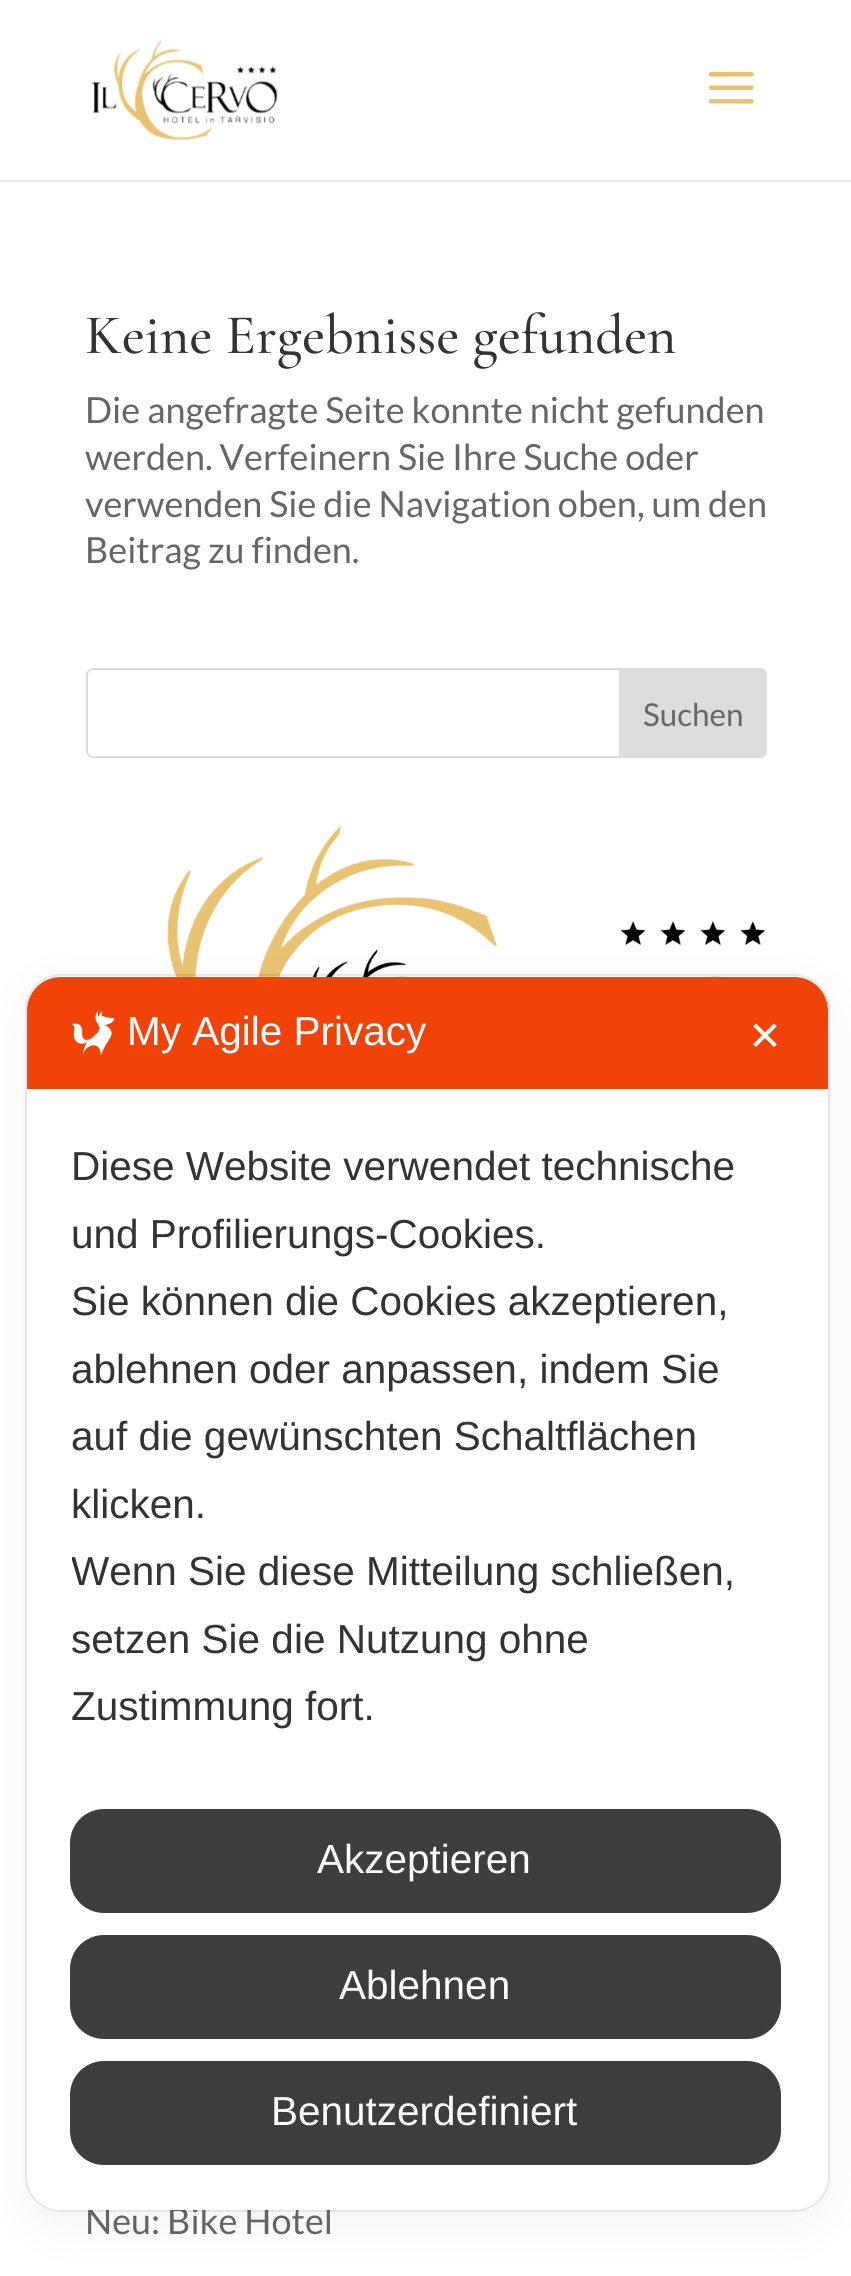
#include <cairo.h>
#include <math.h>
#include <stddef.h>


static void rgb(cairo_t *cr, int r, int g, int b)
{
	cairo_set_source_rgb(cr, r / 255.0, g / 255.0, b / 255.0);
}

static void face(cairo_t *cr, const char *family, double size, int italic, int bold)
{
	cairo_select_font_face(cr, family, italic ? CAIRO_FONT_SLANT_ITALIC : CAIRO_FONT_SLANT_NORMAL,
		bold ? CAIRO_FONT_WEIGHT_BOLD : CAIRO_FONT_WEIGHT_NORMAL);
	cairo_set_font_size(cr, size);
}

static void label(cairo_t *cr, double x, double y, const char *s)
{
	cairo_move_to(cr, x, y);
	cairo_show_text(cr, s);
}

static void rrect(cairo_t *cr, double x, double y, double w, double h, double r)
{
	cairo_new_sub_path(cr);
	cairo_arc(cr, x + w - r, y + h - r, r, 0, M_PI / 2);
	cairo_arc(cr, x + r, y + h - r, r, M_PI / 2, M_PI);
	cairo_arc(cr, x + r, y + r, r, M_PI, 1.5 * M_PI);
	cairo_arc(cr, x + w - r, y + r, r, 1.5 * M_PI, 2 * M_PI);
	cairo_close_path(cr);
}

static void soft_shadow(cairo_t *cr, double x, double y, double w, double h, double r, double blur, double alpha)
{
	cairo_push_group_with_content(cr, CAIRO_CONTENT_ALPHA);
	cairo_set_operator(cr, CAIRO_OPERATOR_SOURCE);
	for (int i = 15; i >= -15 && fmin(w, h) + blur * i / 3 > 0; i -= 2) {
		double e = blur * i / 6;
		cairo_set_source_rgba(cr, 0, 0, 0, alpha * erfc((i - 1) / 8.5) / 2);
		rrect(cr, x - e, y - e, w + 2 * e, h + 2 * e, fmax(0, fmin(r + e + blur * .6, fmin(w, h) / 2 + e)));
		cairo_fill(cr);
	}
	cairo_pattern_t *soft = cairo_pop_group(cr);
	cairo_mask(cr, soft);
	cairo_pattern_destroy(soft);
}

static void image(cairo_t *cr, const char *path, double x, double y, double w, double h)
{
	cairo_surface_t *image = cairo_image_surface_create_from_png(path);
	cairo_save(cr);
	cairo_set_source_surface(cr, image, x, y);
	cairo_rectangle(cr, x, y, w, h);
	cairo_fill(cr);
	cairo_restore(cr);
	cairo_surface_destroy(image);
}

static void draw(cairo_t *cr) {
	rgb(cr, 255, 255, 255);
	cairo_paint(cr);
	rgb(cr, 230, 230, 230);
	cairo_new_path(cr);
	cairo_move_to(cr, 0, 180);
	cairo_line_to(cr, 0, 182);
	cairo_line_to(cr, 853, 182);
	cairo_line_to(cr, 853, 2);
	cairo_line_to(cr, 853, 180);
	cairo_close_path(cr);
	cairo_fill(cr);
	image(cr, "image0.png", 92, 40, 186, 100);
	image(cr, "image1.png", 708, 72, 46, 32);
	face(cr, "Cormorant Garamond Light", 56.25, 0, 0);
	rgb(cr, 51, 51, 51);
	label(cr, 85, 353, "Keine Ergebnisse gefunden");
	face(cr, "Lato", 36, 0, 0);
	rgb(cr, 102, 102, 102);
	label(cr, 85, 423, "Die angefragte Seite konnte nicht gefunden");
	label(cr, 85, 470, "werden. Verfeinern Sie Ihre Suche oder");
	label(cr, 85, 517, "verwenden Sie die Navigation oben, um den");
	label(cr, 85, 563, "Beitrag zu finden.");
	rrect(cr, 87, 669, 679, 88, 6);
	rgb(cr, 221, 221, 221);
	cairo_stroke(cr);
	cairo_new_path(cr);
	cairo_move_to(cr, 620, 669);
	cairo_line_to(cr, 760, 669);
	cairo_curve_to(cr, 763.5, 669, 766, 671.5, 766, 675);
	cairo_line_to(cr, 766, 751);
	cairo_curve_to(cr, 766, 754.5, 763.5, 757, 760, 757);
	cairo_line_to(cr, 620, 757);
	cairo_close_path(cr);
	cairo_fill_preserve(cr);
	cairo_stroke(cr);
	face(cr, "Lato", 31.5, 0, 0);
	rgb(cr, 102, 102, 102);
	label(cr, 643, 726, "Suchen");
	image(cr, "image2.png", 167, 825, 599, 152);
	face(cr, "Lato", 36, 0, 0);
	label(cr, 85, 2234, "Neu: Bike Hotel");
	rrect(cr, 26, 975, 803, 1236, 35);
	cairo_set_source_rgba(cr, 0, 0, 0, 0.08);
	cairo_stroke(cr);
	rgb(cr, 0, 0, 0);
	soft_shadow(cr, 27, 990, 801, 1233, 34, 27, 0.05);
	rgb(cr, 255, 255, 255);
	rrect(cr, 27, 977, 801, 1233, 34);
	cairo_fill(cr);
	rgb(cr, 241, 67, 7);
	cairo_new_path(cr);
	cairo_move_to(cr, 61, 977);
	cairo_line_to(cr, 794, 977);
	cairo_curve_to(cr, 813, 977, 828, 992, 828, 1011);
	cairo_line_to(cr, 828, 1089);
	cairo_line_to(cr, 27, 1089);
	cairo_line_to(cr, 27, 1011);
	cairo_curve_to(cr, 27, 992, 42, 977, 61, 977);
	cairo_close_path(cr);
	cairo_fill(cr);
	image(cr, "image3.png", 72, 1010, 43, 45);
	face(cr, "Liberation Sans", 40.5, 0, 0);
	rgb(cr, 255, 255, 255);
	label(cr, 127, 1045, "My Agile Privacy");
	face(cr, "DejaVu Sans", 40.5, 0, 0);
	label(cr, 748, 1050, "✕");
	face(cr, "Liberation Sans", 40.5, 0, 0);
	rgb(cr, 51, 51, 51);
	label(cr, 71, 1180, "Diese Website verwendet technische");
	label(cr, 71, 1248, "und Profilierungs-Cookies.");
	label(cr, 71, 1315, "Sie können die Cookies akzeptieren,");
	label(cr, 71, 1383, "ablehnen oder anpassen, indem Sie");
	label(cr, 71, 1450, "auf die gewünschten Schaltflächen");
	label(cr, 71, 1518, "klicken.");
	cairo_save(cr);
	cairo_rectangle(cr, 72, 1134, 711, 608);
	cairo_clip(cr);
	label(cr, 71, 1585, "Wenn Sie diese Mitteilung schließen,");
	cairo_restore(cr);
	label(cr, 71, 1653, "setzen Sie die Nutzung ohne");
	cairo_save(cr);
	cairo_rectangle(cr, 72, 1134, 711, 608);
	cairo_clip(cr);
	label(cr, 71, 1720, "Zustimmung fort.");
	cairo_restore(cr);
	rgb(cr, 61, 61, 61);
	rrect(cr, 70, 1809, 711, 104, 34);
	cairo_fill(cr);
	rgb(cr, 255, 255, 255);
	label(cr, 317, 1873, "Akzeptieren");
	rgb(cr, 61, 61, 61);
	rrect(cr, 70, 1935, 711, 104, 34);
	cairo_fill(cr);
	rgb(cr, 255, 255, 255);
	label(cr, 339, 1999, "Ablehnen");
	rgb(cr, 61, 61, 61);
	rrect(cr, 70, 2061, 711, 104, 34);
	cairo_fill(cr);
	rgb(cr, 255, 255, 255);
	label(cr, 271, 2125, "Benutzerdefiniert");
}

int main(void) {
	cairo_surface_t *surface = cairo_image_surface_create(CAIRO_FORMAT_RGB24, 851, 2276);
	cairo_t *cr = cairo_create(surface);
	cairo_font_options_t *options = cairo_font_options_create();
	cairo_font_options_set_hint_metrics(options, CAIRO_HINT_METRICS_OFF);
	cairo_font_options_set_hint_style(options, CAIRO_HINT_STYLE_NONE);
	cairo_set_font_options(cr, options);
	cairo_set_miter_limit(cr, 4);
	draw(cr);
	cairo_surface_write_to_png(surface, "render.png");
	cairo_font_options_destroy(options);
	cairo_destroy(cr);
	cairo_surface_destroy(surface);
	return 0;
}
